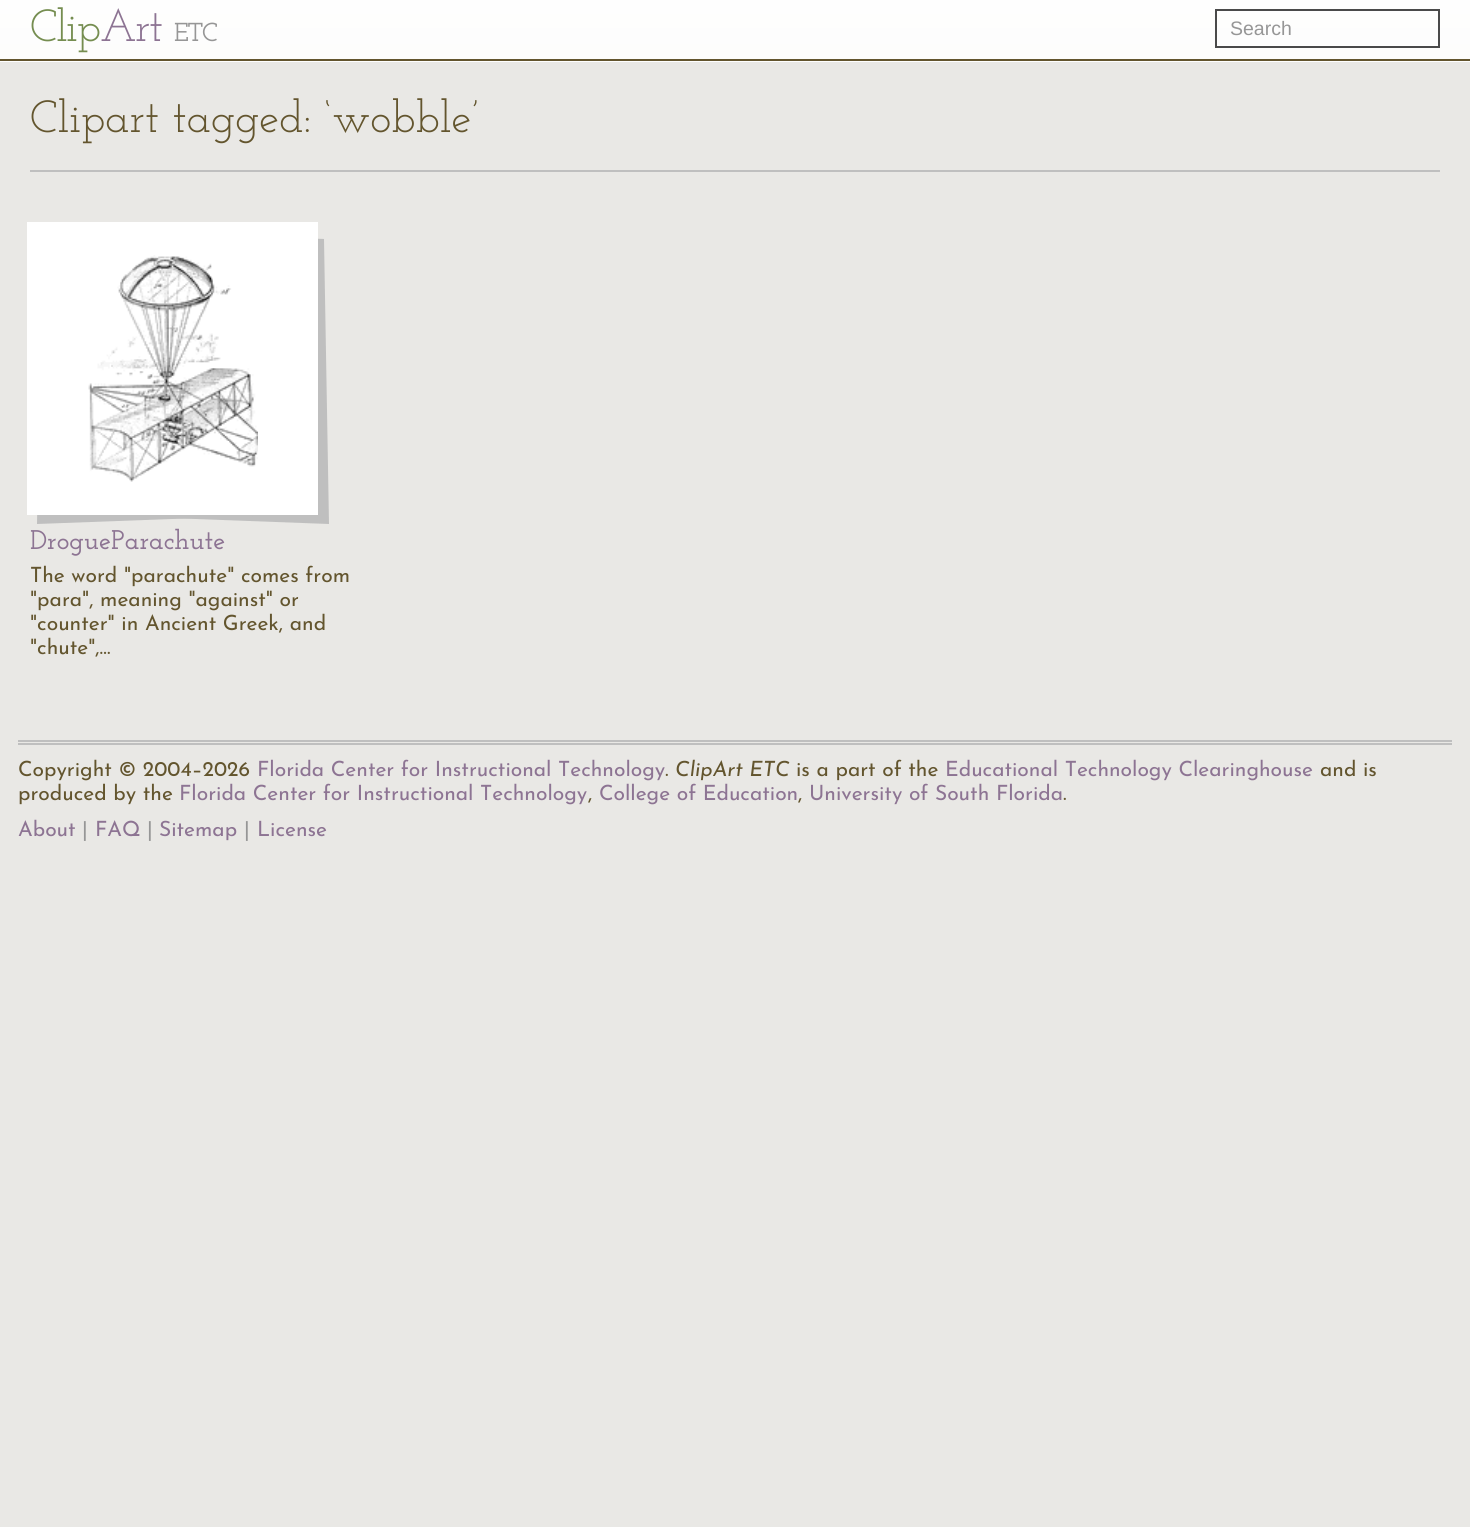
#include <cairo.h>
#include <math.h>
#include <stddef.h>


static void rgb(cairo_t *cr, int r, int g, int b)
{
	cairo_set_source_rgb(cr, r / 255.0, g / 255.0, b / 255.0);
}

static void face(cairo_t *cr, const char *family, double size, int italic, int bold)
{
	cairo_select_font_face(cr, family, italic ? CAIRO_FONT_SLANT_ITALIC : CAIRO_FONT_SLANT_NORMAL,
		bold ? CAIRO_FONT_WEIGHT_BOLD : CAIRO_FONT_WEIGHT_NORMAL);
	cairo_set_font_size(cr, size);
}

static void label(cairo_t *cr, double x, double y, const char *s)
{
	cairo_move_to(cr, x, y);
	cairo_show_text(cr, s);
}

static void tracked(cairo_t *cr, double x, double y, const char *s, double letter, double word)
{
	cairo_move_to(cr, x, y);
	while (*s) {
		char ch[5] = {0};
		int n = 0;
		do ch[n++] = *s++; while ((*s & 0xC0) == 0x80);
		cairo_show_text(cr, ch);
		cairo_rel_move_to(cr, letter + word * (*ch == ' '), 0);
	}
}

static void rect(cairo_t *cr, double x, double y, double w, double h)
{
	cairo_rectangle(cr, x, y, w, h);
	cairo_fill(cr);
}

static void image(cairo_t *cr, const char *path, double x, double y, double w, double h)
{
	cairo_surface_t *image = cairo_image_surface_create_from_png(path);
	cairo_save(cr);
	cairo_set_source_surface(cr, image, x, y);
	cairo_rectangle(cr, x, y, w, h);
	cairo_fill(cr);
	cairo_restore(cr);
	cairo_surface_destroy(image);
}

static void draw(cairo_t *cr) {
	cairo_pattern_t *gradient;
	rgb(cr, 233, 232, 229);
	cairo_paint(cr);
	rgb(cr, 255, 255, 255);
	rect(cr, 0, 61, 1470, 1);
	gradient = cairo_pattern_create_linear(735, 0, 735, 60);
	cairo_pattern_add_color_stop_rgba(gradient, 0, 0.996, 0.996, 0.996, 1);
	cairo_pattern_add_color_stop_rgba(gradient, 1, 0.992, 0.992, 0.988, 1);
	cairo_set_source(cr, gradient);
	cairo_pattern_destroy(gradient);
	rect(cr, 0, 0, 1470, 59);
	rgb(cr, 99, 85, 46);
	rect(cr, 0, 59, 1470, 2);
	face(cr, "Josefin Slab", 45, 0, 0);
	rgb(cr, 117, 141, 80);
	tracked(cr, 30, 41, "Cl", -1.5, 0);
	tracked(cr, 66, 41, "ip", -1, 0);
	rgb(cr, 141, 116, 147);
	tracked(cr, 100, 41, "Art", -1.5, 0);
	face(cr, "Josefin Slab SemiBold", 26, 0, 0);
	rgb(cr, 150, 150, 150);
	tracked(cr, 174, 41, "ETC", -1.5, 0);
	rgb(cr, 255, 255, 255);
	rect(cr, 1217, 45, 221, 1);
	cairo_rectangle(cr, 1216, 10, 223, 37);
	rgb(cr, 74, 74, 74);
	cairo_stroke(cr);
	face(cr, "Liberation Sans", 19.5, 0, 0);
	rgb(cr, 150, 150, 150);
	label(cr, 1230, 35, "Search");
	rgb(cr, 191, 191, 191);
	rect(cr, 30, 170, 1410, 2);
	face(cr, "Josefin Slab", 45, 0, 0);
	rgb(cr, 99, 85, 46);
	label(cr, 30, 132, "Clipart tagged: ‘wobble’");
	rgb(cr, 191, 191, 191);
	cairo_new_path(cr);
	cairo_move_to(cr, 55, 229);
	cairo_line_to(cr, 324, 239);
	cairo_line_to(cr, 329, 524);
	cairo_line_to(cr, 60, 514);
	cairo_close_path(cr);
	cairo_fill(cr);
	cairo_new_path(cr);
	cairo_move_to(cr, 42, 239);
	cairo_line_to(cr, 311, 229);
	cairo_line_to(cr, 306, 514);
	cairo_line_to(cr, 37, 524);
	cairo_close_path(cr);
	cairo_fill(cr);
	cairo_rectangle(cr, 28.5, 223.5, 288, 290);
	rgb(cr, 255, 255, 255);
	cairo_set_line_width(cr, 3);
	cairo_stroke(cr);
	rect(cr, 30, 225, 285, 287);
	image(cr, "image0.png", 88, 255, 170, 227);
	face(cr, "Josefin Slab SemiBold", 27, 0, 0);
	rgb(cr, 141, 116, 147);
	label(cr, 30, 549, "DrogueParachute");
	face(cr, "Josefin Sans", 21, 0, 0);
	rgb(cr, 99, 85, 46);
	label(cr, 30, 582, "The word \"parachute\" comes from");
	label(cr, 30, 606, "\"para\", meaning \"against\" or");
	label(cr, 30, 630, "\"counter\" in Ancient Greek, and");
	label(cr, 30, 654, "\"chute\",…");
	rgb(cr, 191, 191, 191);
	rect(cr, 18, 740, 1434, 2);
	rect(cr, 18, 743, 1434, 2);
	rgb(cr, 99, 85, 46);
	label(cr, 18, 776, "Copyright © 2004–2026");
	rgb(cr, 141, 116, 147);
	label(cr, 257, 776, "Florida Center for Instructional Technology");
	rgb(cr, 99, 85, 46);
	label(cr, 665, 776, ".");
	face(cr, "Josefin Sans Thin", 21, 1, 0);
	label(cr, 675, 776, "ClipArt ETC");
	face(cr, "Josefin Sans", 21, 0, 0);
	label(cr, 796, 776, "is a part of the");
	rgb(cr, 141, 116, 147);
	label(cr, 945, 776, "Educational Technology Clearinghouse");
	rgb(cr, 99, 85, 46);
	label(cr, 1320, 776, "and is");
	label(cr, 18, 800, "produced by the");
	rgb(cr, 141, 116, 147);
	label(cr, 179, 800, "Florida Center for Instructional Technology");
	rgb(cr, 99, 85, 46);
	label(cr, 588, 800, ",");
	rgb(cr, 141, 116, 147);
	label(cr, 599, 800, "College of Education");
	rgb(cr, 99, 85, 46);
	label(cr, 798, 800, ",");
	rgb(cr, 141, 116, 147);
	label(cr, 809, 800, "University of South Florida");
	rgb(cr, 99, 85, 46);
	label(cr, 1063, 800, ".");
	rgb(cr, 141, 116, 147);
	label(cr, 18, 836, "About");
	rgb(cr, 150, 150, 150);
	label(cr, 82, 836, "|");
	rgb(cr, 141, 116, 147);
	label(cr, 95, 836, "FAQ");
	rgb(cr, 150, 150, 150);
	label(cr, 147, 836, "|");
	rgb(cr, 141, 116, 147);
	label(cr, 159, 836, "Sitemap");
	rgb(cr, 150, 150, 150);
	label(cr, 244, 836, "|");
	rgb(cr, 141, 116, 147);
	label(cr, 257, 836, "License");
}

int main(void) {
	cairo_surface_t *surface = cairo_image_surface_create(CAIRO_FORMAT_RGB24, 1470, 1527);
	cairo_t *cr = cairo_create(surface);
	cairo_font_options_t *options = cairo_font_options_create();
	cairo_font_options_set_hint_metrics(options, CAIRO_HINT_METRICS_OFF);
	cairo_font_options_set_hint_style(options, CAIRO_HINT_STYLE_NONE);
	cairo_set_font_options(cr, options);
	cairo_set_miter_limit(cr, 4);
	draw(cr);
	cairo_surface_write_to_png(surface, "render.png");
	cairo_font_options_destroy(options);
	cairo_destroy(cr);
	cairo_surface_destroy(surface);
	return 0;
}
